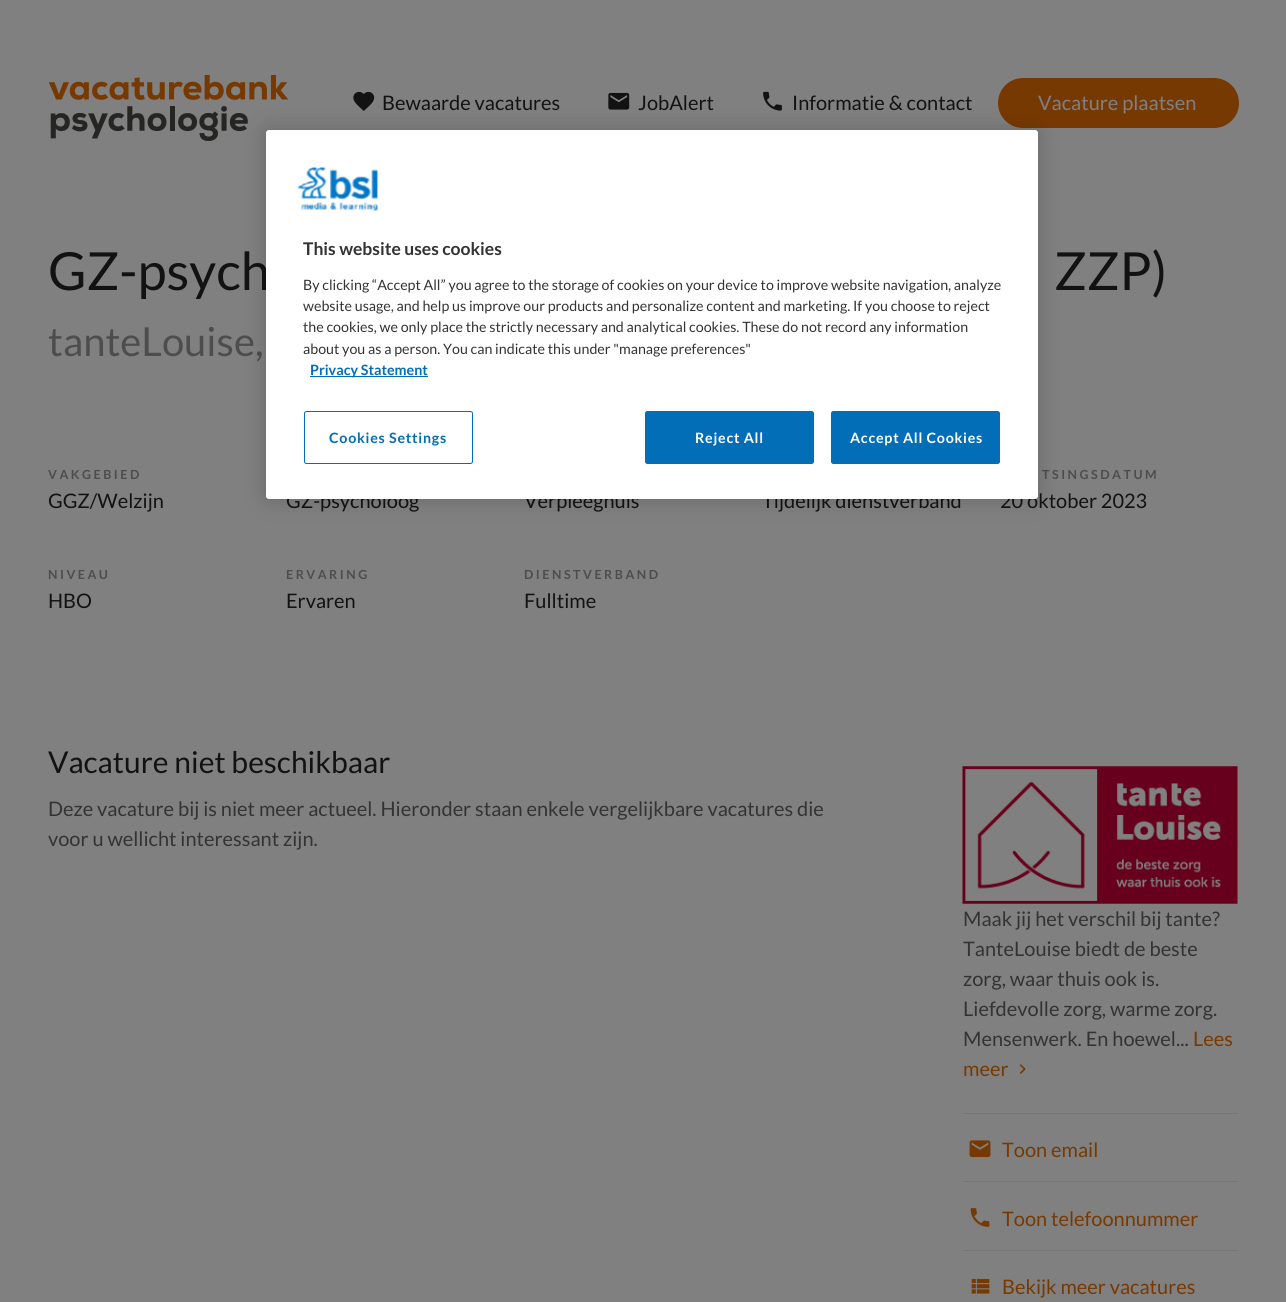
#include <cairo.h>
#include <math.h>
#include <stddef.h>


static void rgb(cairo_t *cr, int r, int g, int b)
{
	cairo_set_source_rgb(cr, r / 255.0, g / 255.0, b / 255.0);
}

static void face(cairo_t *cr, const char *family, double size, int italic, int bold)
{
	cairo_select_font_face(cr, family, italic ? CAIRO_FONT_SLANT_ITALIC : CAIRO_FONT_SLANT_NORMAL,
		bold ? CAIRO_FONT_WEIGHT_BOLD : CAIRO_FONT_WEIGHT_NORMAL);
	cairo_set_font_size(cr, size);
}

static void label(cairo_t *cr, double x, double y, const char *s)
{
	cairo_move_to(cr, x, y);
	cairo_show_text(cr, s);
}

static void tracked(cairo_t *cr, double x, double y, const char *s, double letter, double word)
{
	cairo_move_to(cr, x, y);
	while (*s) {
		char ch[5] = {0};
		int n = 0;
		do ch[n++] = *s++; while ((*s & 0xC0) == 0x80);
		cairo_show_text(cr, ch);
		cairo_rel_move_to(cr, letter + word * (*ch == ' '), 0);
	}
}

static void rect(cairo_t *cr, double x, double y, double w, double h)
{
	cairo_rectangle(cr, x, y, w, h);
	cairo_fill(cr);
}

static void rrect(cairo_t *cr, double x, double y, double w, double h, double r)
{
	cairo_new_sub_path(cr);
	cairo_arc(cr, x + w - r, y + h - r, r, 0, M_PI / 2);
	cairo_arc(cr, x + r, y + h - r, r, M_PI / 2, M_PI);
	cairo_arc(cr, x + r, y + r, r, M_PI, 1.5 * M_PI);
	cairo_arc(cr, x + w - r, y + r, r, 1.5 * M_PI, 2 * M_PI);
	cairo_close_path(cr);
}

static void soft_shadow(cairo_t *cr, double x, double y, double w, double h, double r, double blur, double alpha)
{
	cairo_push_group_with_content(cr, CAIRO_CONTENT_ALPHA);
	cairo_set_operator(cr, CAIRO_OPERATOR_SOURCE);
	for (int i = 15; i >= -15 && fmin(w, h) + blur * i / 3 > 0; i -= 2) {
		double e = blur * i / 6;
		cairo_set_source_rgba(cr, 0, 0, 0, alpha * erfc((i - 1) / 8.5) / 2);
		rrect(cr, x - e, y - e, w + 2 * e, h + 2 * e, fmax(0, fmin(r + e + blur * .6, fmin(w, h) / 2 + e)));
		cairo_fill(cr);
	}
	cairo_pattern_t *soft = cairo_pop_group(cr);
	cairo_mask(cr, soft);
	cairo_pattern_destroy(soft);
}

static void image(cairo_t *cr, const char *path, double x, double y, double w, double h)
{
	cairo_surface_t *image = cairo_image_surface_create_from_png(path);
	cairo_save(cr);
	cairo_set_source_surface(cr, image, x, y);
	cairo_rectangle(cr, x, y, w, h);
	cairo_fill(cr);
	cairo_restore(cr);
	cairo_surface_destroy(image);
}

static void draw(cairo_t *cr) {
	rgb(cr, 128, 128, 128);
	cairo_paint(cr);
	image(cr, "image0.png", 49, 75, 239, 66);
	image(cr, "image1.png", 353, 91, 22, 20);
	face(cr, "Lato", 20, 0, 0);
	rgb(cr, 18, 18, 18);
	label(cr, 382, 110, "Bewaarde vacatures");
	image(cr, "image2.png", 608, 92, 22, 18);
	label(cr, 638, 110, "JobAlert");
	image(cr, "image3.png", 763, 91, 19, 20);
	label(cr, 792, 110, "Informatie & contact");
	rgb(cr, 119, 57, 2);
	rrect(cr, 998, 78, 241, 50, 25);
	cairo_fill(cr);
	rgb(cr, 128, 128, 128);
	label(cr, 1038, 110, "Vacature plaatsen");
	face(cr, "Lato", 52.5, 0, 0);
	rgb(cr, 18, 18, 18);
	label(cr, 48, 290, "GZ-psych");
	label(cr, 1054, 290, "ZZP)");
	face(cr, "Lato", 40, 0, 0);
	rgb(cr, 77, 77, 77);
	label(cr, 48, 356, "tanteLouise,");
	face(cr, "Lato", 12.5, 0, 1);
	tracked(cr, 48, 479, "VAKGEBIED", 2.5, 0);
	tracked(cr, 1042, 479, "TSINGSDATUM", 2.5, 0);
	face(cr, "Lato", 20, 0, 0);
	rgb(cr, 18, 18, 18);
	label(cr, 48, 508, "GGZ/Welzijn");
	label(cr, 286, 508, "GZ-psycholoog");
	label(cr, 524, 508, "Verpleeghuis");
	label(cr, 762, 508, "Tijdelijk dienstverband");
	label(cr, 1000, 508, "20 oktober 2023");
	face(cr, "Lato", 12.5, 0, 1);
	rgb(cr, 77, 77, 77);
	tracked(cr, 48, 579, "NIVEAU", 2.5, 0);
	tracked(cr, 286, 579, "ERVARING", 2.5, 0);
	tracked(cr, 524, 579, "DIENSTVERBAND", 2.5, 0);
	face(cr, "Lato", 20, 0, 0);
	rgb(cr, 18, 18, 18);
	label(cr, 48, 608, "HBO");
	label(cr, 286, 608, "Ervaren");
	label(cr, 524, 608, "Fulltime");
	face(cr, "Lato", 30, 0, 0);
	label(cr, 48, 773, "Vacature niet beschikbaar");
	face(cr, "Lato", 20, 0, 0);
	rgb(cr, 51, 51, 51);
	label(cr, 48, 816, "Deze vacature bij is niet meer actueel. Hieronder staan enkele vergelijkbare vacatures die");
	label(cr, 48, 846, "voor u wellicht interessant zijn.");
	image(cr, "image4.png", 962, 766, 276, 138);
	label(cr, 963, 926, "Maak jij het verschil bij tante?");
	label(cr, 963, 956, "TanteLouise biedt de beste");
	label(cr, 963, 986, "zorg, waar thuis ook is.");
	label(cr, 963, 1016, "Liefdevolle zorg, warme zorg.");
	label(cr, 963, 1046, "Mensenwerk. En hoewel...");
	rgb(cr, 119, 57, 2);
	label(cr, 1193, 1046, "Lees");
	label(cr, 963, 1076, "meer");
	image(cr, "image5.png", 1019, 1064, 7, 10);
	rgb(cr, 117, 117, 117);
	rect(cr, 963, 1113, 275, 1);
	rect(cr, 963, 1181, 275, 1);
	image(cr, "image6.png", 969, 1140, 22, 18);
	rgb(cr, 119, 57, 2);
	label(cr, 1002, 1157, "Toon email");
	rgb(cr, 117, 117, 117);
	rect(cr, 963, 1250, 275, 1);
	image(cr, "image7.png", 970, 1208, 20, 19);
	rgb(cr, 119, 57, 2);
	label(cr, 1002, 1226, "Toon telefoonnummer");
	image(cr, "image8.png", 971, 1278, 19, 16);
	label(cr, 1002, 1294, "Bekijk meer vacatures");
	rgb(cr, 0, 0, 0);
	soft_shadow(cr, 266, 130, 772, 369, 3, 11, 0.2);
	rgb(cr, 255, 255, 255);
	rrect(cr, 266, 130, 772, 369, 3);
	cairo_fill(cr);
	image(cr, "image9.png", 297, 167, 81, 44);
	face(cr, "Lato", 17.5, 0, 1);
	rgb(cr, 51, 51, 51);
	label(cr, 303, 255, "This website uses cookies");
	face(cr, "Lato", 14.25, 0, 0);
	label(cr, 303, 290, "By clicking “Accept All” you agree to the storage of cookies on your device to improve website navigation, analyze");
	label(cr, 303, 311, "website usage, and help us improve our products and personalize content and marketing. If you choose to reject");
	label(cr, 303, 332, "the cookies, we only place the strictly necessary and analytical cookies. These do not record any information");
	label(cr, 303, 354, "about you as a person. You can indicate this under \"manage preferences\"");
	rgb(cr, 1, 110, 183);
	rect(cr, 310, 376, 118, 1);
	face(cr, "Lato", 14.25, 0, 1);
	label(cr, 310, 375, "Privacy Statement");
	rrect(cr, 304.5, 411.5, 168, 52, 2);
	cairo_set_line_width(cr, 1);
	cairo_stroke(cr);
	tracked(cr, 329, 443, "Cookies Settings", 0.75, 0);
	rrect(cr, 645.5, 411.5, 168, 52, 2);
	cairo_fill_preserve(cr);
	cairo_stroke(cr);
	rgb(cr, 255, 255, 255);
	tracked(cr, 695, 443, "Reject All", 0.75, 0);
	rgb(cr, 1, 110, 183);
	rrect(cr, 831.5, 411.5, 168, 52, 2);
	cairo_fill_preserve(cr);
	cairo_stroke(cr);
	rgb(cr, 255, 255, 255);
	tracked(cr, 850, 443, "Accept All Cookies", 0.75, 0);
}

int main(void) {
	cairo_surface_t *surface = cairo_image_surface_create(CAIRO_FORMAT_RGB24, 1286, 1302);
	cairo_t *cr = cairo_create(surface);
	cairo_font_options_t *options = cairo_font_options_create();
	cairo_font_options_set_hint_metrics(options, CAIRO_HINT_METRICS_OFF);
	cairo_font_options_set_hint_style(options, CAIRO_HINT_STYLE_NONE);
	cairo_set_font_options(cr, options);
	cairo_set_miter_limit(cr, 4);
	draw(cr);
	cairo_surface_write_to_png(surface, "render.png");
	cairo_font_options_destroy(options);
	cairo_destroy(cr);
	cairo_surface_destroy(surface);
	return 0;
}
